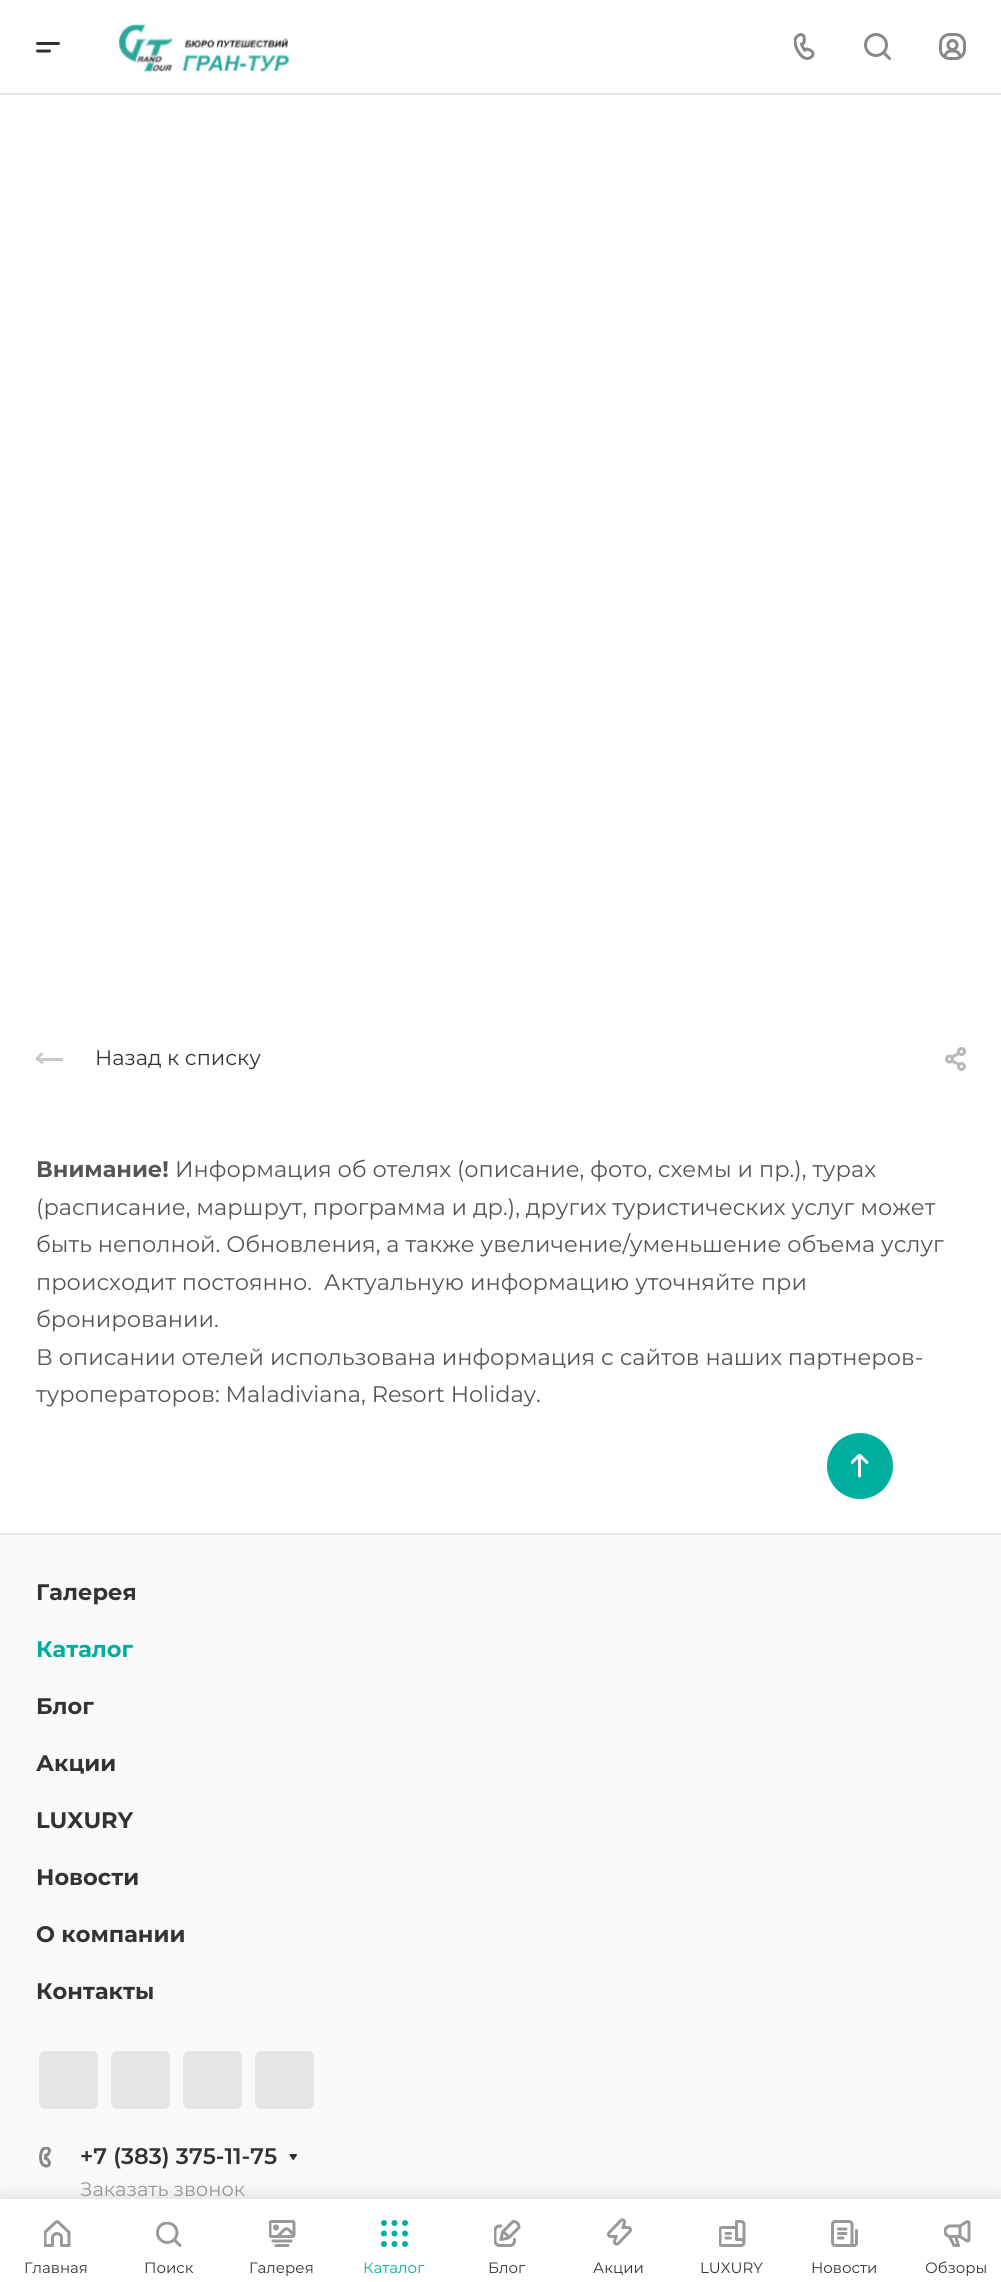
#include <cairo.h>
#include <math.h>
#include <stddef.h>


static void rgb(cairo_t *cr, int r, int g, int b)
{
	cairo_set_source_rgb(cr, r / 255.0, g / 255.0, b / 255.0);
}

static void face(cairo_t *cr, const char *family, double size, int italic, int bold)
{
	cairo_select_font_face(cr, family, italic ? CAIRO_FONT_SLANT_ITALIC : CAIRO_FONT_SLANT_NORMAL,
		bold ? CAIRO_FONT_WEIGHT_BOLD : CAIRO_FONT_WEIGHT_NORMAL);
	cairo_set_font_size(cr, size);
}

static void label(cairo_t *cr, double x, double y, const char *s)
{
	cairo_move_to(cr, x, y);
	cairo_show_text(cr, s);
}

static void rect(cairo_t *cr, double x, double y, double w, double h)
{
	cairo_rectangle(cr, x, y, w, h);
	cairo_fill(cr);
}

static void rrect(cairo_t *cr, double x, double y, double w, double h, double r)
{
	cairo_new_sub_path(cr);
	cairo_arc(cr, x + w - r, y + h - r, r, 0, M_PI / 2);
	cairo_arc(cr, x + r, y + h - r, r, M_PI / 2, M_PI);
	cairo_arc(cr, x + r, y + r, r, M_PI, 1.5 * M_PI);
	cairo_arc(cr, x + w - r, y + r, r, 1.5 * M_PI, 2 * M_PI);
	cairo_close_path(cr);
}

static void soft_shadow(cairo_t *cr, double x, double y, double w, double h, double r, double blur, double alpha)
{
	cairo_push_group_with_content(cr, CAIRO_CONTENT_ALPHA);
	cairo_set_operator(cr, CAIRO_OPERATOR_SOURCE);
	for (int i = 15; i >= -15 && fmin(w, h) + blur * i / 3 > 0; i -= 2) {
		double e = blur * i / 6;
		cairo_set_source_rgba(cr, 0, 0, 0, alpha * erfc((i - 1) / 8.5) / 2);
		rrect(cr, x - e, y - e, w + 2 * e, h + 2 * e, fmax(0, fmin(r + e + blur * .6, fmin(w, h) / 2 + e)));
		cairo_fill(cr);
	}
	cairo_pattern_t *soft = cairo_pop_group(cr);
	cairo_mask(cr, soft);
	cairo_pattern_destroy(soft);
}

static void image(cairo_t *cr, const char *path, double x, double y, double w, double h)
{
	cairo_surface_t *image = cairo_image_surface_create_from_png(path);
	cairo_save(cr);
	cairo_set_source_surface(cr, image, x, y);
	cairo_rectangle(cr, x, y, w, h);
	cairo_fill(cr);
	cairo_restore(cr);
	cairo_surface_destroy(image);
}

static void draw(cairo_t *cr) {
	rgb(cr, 255, 255, 255);
	cairo_paint(cr);
	rgb(cr, 229, 229, 229);
	rect(cr, 0, 93, 1001, 2);
	image(cr, "image0.png", 36, 42, 24, 11);
	image(cr, "image1.png", 118, 24, 172, 48);
	image(cr, "image2.png", 794, 33, 21, 27);
	image(cr, "image3.png", 864, 33, 27, 27);
	image(cr, "image4.png", 939, 33, 27, 27);
	cairo_save(cr);
	cairo_rectangle(cr, 36, 1053, 8, 12);
	cairo_clip(cr);
	cairo_new_path(cr);
	cairo_move_to(cr, 42, 1062.5);
	cairo_line_to(cr, 37.5, 1058);
	cairo_line_to(cr, 42, 1053.5);
	rgb(cr, 202, 202, 202);
	cairo_set_line_width(cr, 3);
	cairo_set_line_cap(cr, CAIRO_LINE_CAP_ROUND);
	cairo_set_line_join(cr, CAIRO_LINE_JOIN_ROUND);
	cairo_stroke(cr);
	cairo_restore(cr);
	rgb(cr, 202, 202, 202);
	rect(cr, 36, 1058, 27, 3);
	face(cr, "Montserrat", 21, 0, 0);
	rgb(cr, 51, 51, 51);
	label(cr, 95, 1065, "Назад к списку");
	image(cr, "image5.png", 945, 1047, 21, 24);
	face(cr, "Montserrat", 22.5, 0, 1);
	rgb(cr, 85, 85, 85);
	label(cr, 36, 1177, "Внимание!");
	face(cr, "Montserrat", 22.5, 0, 0);
	label(cr, 175, 1177, "Информация об отелях (описание, фото, схемы и пр.), турах");
	label(cr, 36, 1215, "(расписание, маршрут, программа и др.), других туристических услуг может");
	label(cr, 36, 1252, "быть неполной. Обновления, а также увеличение/уменьшение объема услуг");
	label(cr, 36, 1290, "происходит постоянно.  Актуальную информацию уточняйте при");
	label(cr, 36, 1327, "бронировании.");
	label(cr, 36, 1365, "В описании отелей использована информация с сайтов наших партнеров-");
	label(cr, 36, 1402, "туроператоров: Maladiviana, Resort Holiday.");
	rgb(cr, 0, 174, 160);
	cairo_new_path(cr);
	cairo_arc(cr, 860, 1466, 33, 0, 2 * M_PI);
	cairo_fill(cr);
	image(cr, "image6.png", 851, 1454, 18, 24);
	rgb(cr, 250, 250, 250);
	rect(cr, 0, 1535, 1001, 664);
	rgb(cr, 229, 229, 229);
	rect(cr, 0, 1533, 1001, 2);
	face(cr, "Montserrat", 22.5, 0, 1);
	rgb(cr, 51, 51, 51);
	label(cr, 36, 1600, "Галерея");
	rgb(cr, 0, 174, 160);
	label(cr, 36, 1657, "Каталог");
	rgb(cr, 51, 51, 51);
	label(cr, 36, 1714, "Блог");
	label(cr, 36, 1771, "Акции");
	label(cr, 36, 1828, "LUXURY");
	label(cr, 36, 1885, "Новости");
	label(cr, 36, 1942, "О компании");
	label(cr, 36, 1999, "Контакты");
	rgb(cr, 230, 230, 230);
	rrect(cr, 39, 2051, 59, 58, 6);
	cairo_fill(cr);
	rrect(cr, 111, 2051, 59, 58, 6);
	cairo_fill(cr);
	rrect(cr, 183, 2051, 59, 58, 6);
	cairo_fill(cr);
	rrect(cr, 255, 2051, 59, 58, 6);
	cairo_fill(cr);
	image(cr, "image7.png", 39, 2147, 12, 21);
	face(cr, "Montserrat SemiBold", 22.5, 0, 0);
	rgb(cr, 51, 51, 51);
	label(cr, 80, 2164, "+7 (383) 375-11-75");
	image(cr, "image8.png", 289, 2154, 8, 6);
	face(cr, "Montserrat", 19.5, 0, 0);
	rgb(cr, 153, 153, 153);
	label(cr, 80, 2196, "Заказать звонок");
	rgb(cr, 0, 0, 0);
	soft_shadow(cr, 0, 2195, 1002, 84, 0, 7.5, 0.1);
	rgb(cr, 255, 255, 255);
	rect(cr, 0, 2199, 1001, 83);
	image(cr, "image9.png", 44, 2220, 27, 27);
	face(cr, "Montserrat", 15, 0, 0);
	rgb(cr, 51, 51, 51);
	label(cr, 24, 2273, "Главная");
	image(cr, "image10.png", 156, 2222, 26, 25);
	label(cr, 144, 2273, "Поиск");
	image(cr, "image11.png", 269, 2220, 27, 27);
	label(cr, 249, 2273, "Галерея");
	image(cr, "image12.png", 381, 2220, 27, 27);
	rgb(cr, 0, 174, 160);
	label(cr, 363, 2273, "Каталог");
	image(cr, "image13.png", 494, 2220, 27, 27);
	rgb(cr, 51, 51, 51);
	label(cr, 488, 2273, "Блог");
	image(cr, "image14.png", 607, 2218, 25, 28);
	label(cr, 593, 2273, "Акции");
	image(cr, "image15.png", 719, 2220, 27, 27);
	label(cr, 700, 2273, "LUXURY");
	image(cr, "image16.png", 831, 2220, 27, 27);
	label(cr, 811, 2273, "Новости");
	image(cr, "image17.png", 944, 2220, 27, 27);
	label(cr, 925, 2273, "Обзоры");
}

int main(void) {
	cairo_surface_t *surface = cairo_image_surface_create(CAIRO_FORMAT_RGB24, 1001, 2282);
	cairo_t *cr = cairo_create(surface);
	cairo_font_options_t *options = cairo_font_options_create();
	cairo_font_options_set_hint_metrics(options, CAIRO_HINT_METRICS_OFF);
	cairo_font_options_set_hint_style(options, CAIRO_HINT_STYLE_NONE);
	cairo_set_font_options(cr, options);
	cairo_set_miter_limit(cr, 4);
	draw(cr);
	cairo_surface_write_to_png(surface, "render.png");
	cairo_font_options_destroy(options);
	cairo_destroy(cr);
	cairo_surface_destroy(surface);
	return 0;
}
